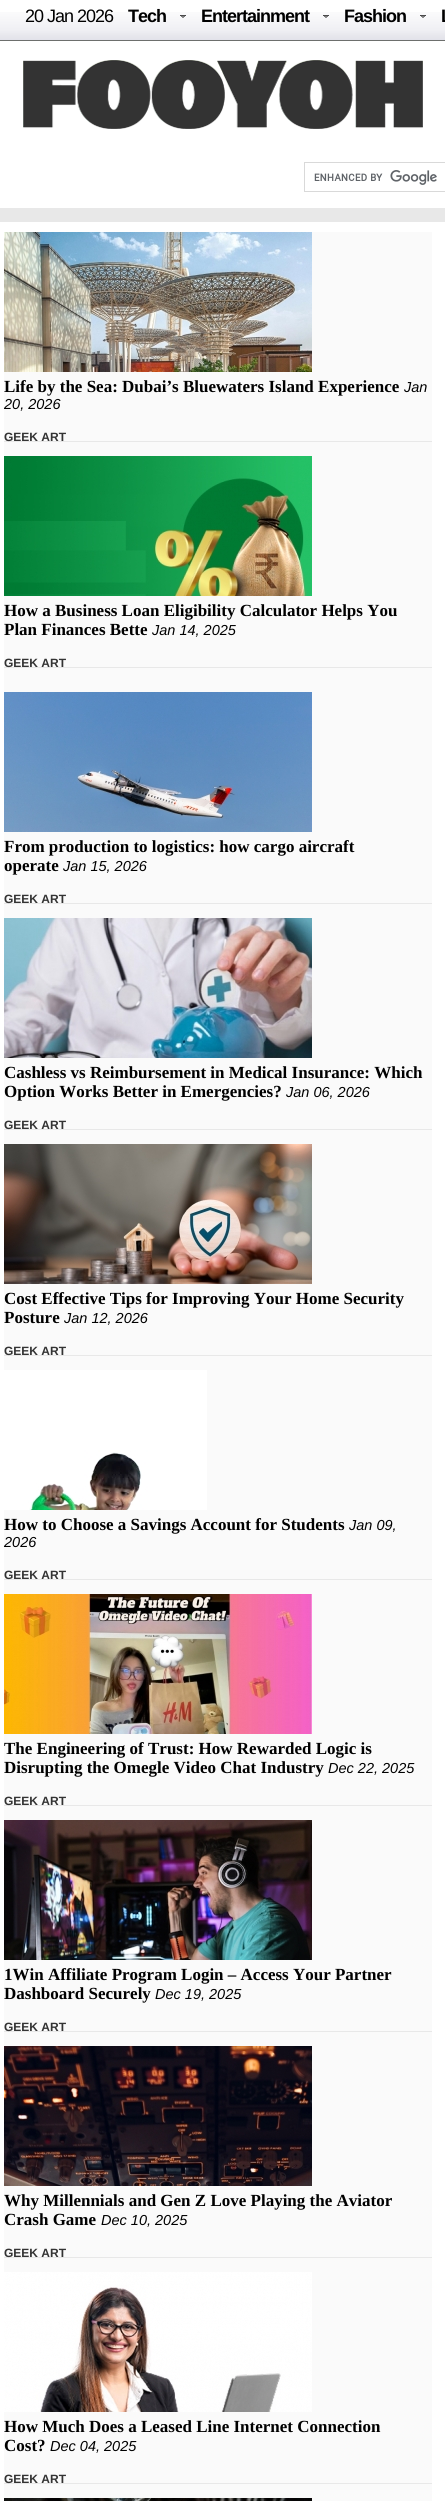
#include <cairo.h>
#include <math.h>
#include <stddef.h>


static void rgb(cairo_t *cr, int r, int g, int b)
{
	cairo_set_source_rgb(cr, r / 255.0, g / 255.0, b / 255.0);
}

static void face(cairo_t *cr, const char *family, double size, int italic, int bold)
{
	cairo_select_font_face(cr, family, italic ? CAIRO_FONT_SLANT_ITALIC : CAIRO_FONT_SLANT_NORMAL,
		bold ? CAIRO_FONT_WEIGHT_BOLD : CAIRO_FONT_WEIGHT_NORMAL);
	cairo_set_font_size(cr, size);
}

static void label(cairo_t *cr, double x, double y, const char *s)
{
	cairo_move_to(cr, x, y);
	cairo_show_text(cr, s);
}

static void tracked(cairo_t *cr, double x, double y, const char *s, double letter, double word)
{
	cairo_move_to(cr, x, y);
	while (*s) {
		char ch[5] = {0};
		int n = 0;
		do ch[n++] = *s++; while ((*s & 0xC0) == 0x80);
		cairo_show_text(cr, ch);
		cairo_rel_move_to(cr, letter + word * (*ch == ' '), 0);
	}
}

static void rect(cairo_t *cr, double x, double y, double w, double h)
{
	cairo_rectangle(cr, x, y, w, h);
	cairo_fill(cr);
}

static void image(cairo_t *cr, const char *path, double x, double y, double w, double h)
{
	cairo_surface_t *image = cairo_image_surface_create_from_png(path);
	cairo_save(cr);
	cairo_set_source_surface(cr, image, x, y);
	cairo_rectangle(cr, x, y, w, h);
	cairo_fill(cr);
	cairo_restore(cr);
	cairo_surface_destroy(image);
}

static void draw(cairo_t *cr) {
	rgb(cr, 255, 255, 255);
	cairo_paint(cr);
	image(cr, "image0.png", 0, 12, 445, 28);
	rgb(cr, 109, 111, 109);
	rect(cr, 0, 40, 445, 1);
	face(cr, "Liberation Sans", 18, 0, 0);
	rgb(cr, 0, 0, 0);
	tracked(cr, 25, 22, "20 Jan 2026", -1, 0);
	image(cr, "image1.png", 180, 15, 6, 3);
	face(cr, "Liberation Sans", 18, 0, 1);
	tracked(cr, 128, 22, "Tech", -1, 0);
	image(cr, "image1.png", 323, 15, 6, 3);
	tracked(cr, 201, 22, "Entertainment", -1, 0);
	image(cr, "image1.png", 420, 15, 6, 3);
	tracked(cr, 344, 22, "Fashion", -1, 0);
	tracked(cr, 441, 22, "L", -1, 0);
	image(cr, "image2.png", 23, 60, 400, 69);
	cairo_rectangle(cr, 304.5, 162.5, 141, 29);
	rgb(cr, 217, 217, 217);
	cairo_set_line_width(cr, 1);
	cairo_stroke(cr);
	image(cr, "image3.png", 314, 170, 123, 15);
	rgb(cr, 232, 232, 232);
	rect(cr, 0, 208, 445, 14);
	rgb(cr, 250, 250, 250);
	rect(cr, 4, 232, 428, 2269);
	image(cr, "image4.png", 4, 232, 308, 140);
	face(cr, "Liberation Serif", 17, 0, 1);
	rgb(cr, 0, 0, 0);
	label(cr, 4, 392, "Life by the Sea: Dubai’s Bluewaters Island Experience");
	face(cr, "Liberation Sans", 14.5, 1, 0);
	label(cr, 404, 392, "Jan");
	label(cr, 4, 409, "20, 2026");
	rgb(cr, 232, 232, 232);
	rect(cr, 4, 441, 428, 1);
	face(cr, "Liberation Sans", 12, 0, 1);
	rgb(cr, 51, 51, 51);
	label(cr, 4, 441, "GEEK ART");
	image(cr, "image5.png", 4, 456, 308, 140);
	face(cr, "Liberation Serif", 17, 0, 1);
	rgb(cr, 0, 0, 0);
	label(cr, 4, 616, "How a Business Loan Eligibility Calculator Helps You");
	label(cr, 4, 635, "Plan Finances Bette");
	face(cr, "Liberation Sans", 14.5, 1, 0);
	label(cr, 152, 635, "Jan 14, 2025");
	rgb(cr, 232, 232, 232);
	rect(cr, 4, 667, 428, 1);
	face(cr, "Liberation Sans", 12, 0, 1);
	rgb(cr, 51, 51, 51);
	label(cr, 4, 667, "GEEK ART");
	image(cr, "image6.png", 4, 692, 308, 140);
	face(cr, "Liberation Serif", 17, 0, 1);
	rgb(cr, 0, 0, 0);
	label(cr, 4, 852, "From production to logistics: how cargo aircraft");
	label(cr, 4, 871, "operate");
	face(cr, "Liberation Sans", 14.5, 1, 0);
	label(cr, 63, 871, "Jan 15, 2026");
	rgb(cr, 232, 232, 232);
	rect(cr, 4, 903, 428, 1);
	face(cr, "Liberation Sans", 12, 0, 1);
	rgb(cr, 51, 51, 51);
	label(cr, 4, 903, "GEEK ART");
	image(cr, "image7.png", 4, 918, 308, 140);
	face(cr, "Liberation Serif", 17, 0, 1);
	rgb(cr, 0, 0, 0);
	label(cr, 4, 1078, "Cashless vs Reimbursement in Medical Insurance: Which");
	label(cr, 4, 1097, "Option Works Better in Emergencies?");
	face(cr, "Liberation Sans", 14.5, 1, 0);
	label(cr, 286, 1097, "Jan 06, 2026");
	rgb(cr, 232, 232, 232);
	rect(cr, 4, 1129, 428, 1);
	face(cr, "Liberation Sans", 12, 0, 1);
	rgb(cr, 51, 51, 51);
	label(cr, 4, 1129, "GEEK ART");
	image(cr, "image8.png", 4, 1144, 308, 140);
	face(cr, "Liberation Serif", 17, 0, 1);
	rgb(cr, 0, 0, 0);
	label(cr, 4, 1304, "Cost Effective Tips for Improving Your Home Security");
	label(cr, 4, 1323, "Posture");
	face(cr, "Liberation Sans", 14.5, 1, 0);
	label(cr, 64, 1323, "Jan 12, 2026");
	rgb(cr, 232, 232, 232);
	rect(cr, 4, 1355, 428, 1);
	face(cr, "Liberation Sans", 12, 0, 1);
	rgb(cr, 51, 51, 51);
	label(cr, 4, 1355, "GEEK ART");
	image(cr, "image9.png", 4, 1370, 203, 140);
	face(cr, "Liberation Serif", 17, 0, 1);
	rgb(cr, 0, 0, 0);
	label(cr, 4, 1530, "How to Choose a Savings Account for Students");
	face(cr, "Liberation Sans", 14.5, 1, 0);
	label(cr, 349, 1530, "Jan 09,");
	label(cr, 4, 1547, "2026");
	rgb(cr, 232, 232, 232);
	rect(cr, 4, 1579, 428, 1);
	face(cr, "Liberation Sans", 12, 0, 1);
	rgb(cr, 51, 51, 51);
	label(cr, 4, 1579, "GEEK ART");
	image(cr, "image10.png", 4, 1594, 308, 140);
	face(cr, "Liberation Serif", 17, 0, 1);
	rgb(cr, 0, 0, 0);
	label(cr, 4, 1754, "The Engineering of Trust: How Rewarded Logic is");
	label(cr, 4, 1773, "Disrupting the Omegle Video Chat Industry");
	face(cr, "Liberation Sans", 14.5, 1, 0);
	label(cr, 328, 1773, "Dec 22, 2025");
	rgb(cr, 232, 232, 232);
	rect(cr, 4, 1805, 428, 1);
	face(cr, "Liberation Sans", 12, 0, 1);
	rgb(cr, 51, 51, 51);
	label(cr, 4, 1805, "GEEK ART");
	image(cr, "image11.png", 4, 1820, 308, 140);
	face(cr, "Liberation Serif", 17, 0, 1);
	rgb(cr, 0, 0, 0);
	label(cr, 4, 1980, "1Win Affiliate Program Login – Access Your Partner");
	label(cr, 4, 1999, "Dashboard Securely");
	face(cr, "Liberation Sans", 14.5, 1, 0);
	label(cr, 155, 1999, "Dec 19, 2025");
	rgb(cr, 232, 232, 232);
	rect(cr, 4, 2031, 428, 1);
	face(cr, "Liberation Sans", 12, 0, 1);
	rgb(cr, 51, 51, 51);
	label(cr, 4, 2031, "GEEK ART");
	image(cr, "image12.png", 4, 2046, 308, 140);
	face(cr, "Liberation Serif", 17, 0, 1);
	rgb(cr, 0, 0, 0);
	label(cr, 4, 2206, "Why Millennials and Gen Z Love Playing the Aviator");
	label(cr, 4, 2225, "Crash Game");
	face(cr, "Liberation Sans", 14.5, 1, 0);
	label(cr, 101, 2225, "Dec 10, 2025");
	rgb(cr, 232, 232, 232);
	rect(cr, 4, 2257, 428, 1);
	face(cr, "Liberation Sans", 12, 0, 1);
	rgb(cr, 51, 51, 51);
	label(cr, 4, 2257, "GEEK ART");
	image(cr, "image13.png", 4, 2272, 308, 140);
	face(cr, "Liberation Serif", 17, 0, 1);
	rgb(cr, 0, 0, 0);
	label(cr, 4, 2432, "How Much Does a Leased Line Internet Connection");
	label(cr, 4, 2451, "Cost?");
	face(cr, "Liberation Sans", 14.5, 1, 0);
	label(cr, 50, 2451, "Dec 04, 2025");
	rgb(cr, 232, 232, 232);
	rect(cr, 4, 2483, 428, 1);
	face(cr, "Liberation Sans", 12, 0, 1);
	rgb(cr, 51, 51, 51);
	label(cr, 4, 2483, "GEEK ART");
	image(cr, "image14.png", 4, 2498, 308, 3);
}

int main(void) {
	cairo_surface_t *surface = cairo_image_surface_create(CAIRO_FORMAT_RGB24, 445, 2501);
	cairo_t *cr = cairo_create(surface);
	cairo_font_options_t *options = cairo_font_options_create();
	cairo_font_options_set_hint_metrics(options, CAIRO_HINT_METRICS_OFF);
	cairo_font_options_set_hint_style(options, CAIRO_HINT_STYLE_NONE);
	cairo_set_font_options(cr, options);
	cairo_set_miter_limit(cr, 4);
	draw(cr);
	cairo_surface_write_to_png(surface, "render.png");
	cairo_font_options_destroy(options);
	cairo_destroy(cr);
	cairo_surface_destroy(surface);
	return 0;
}
